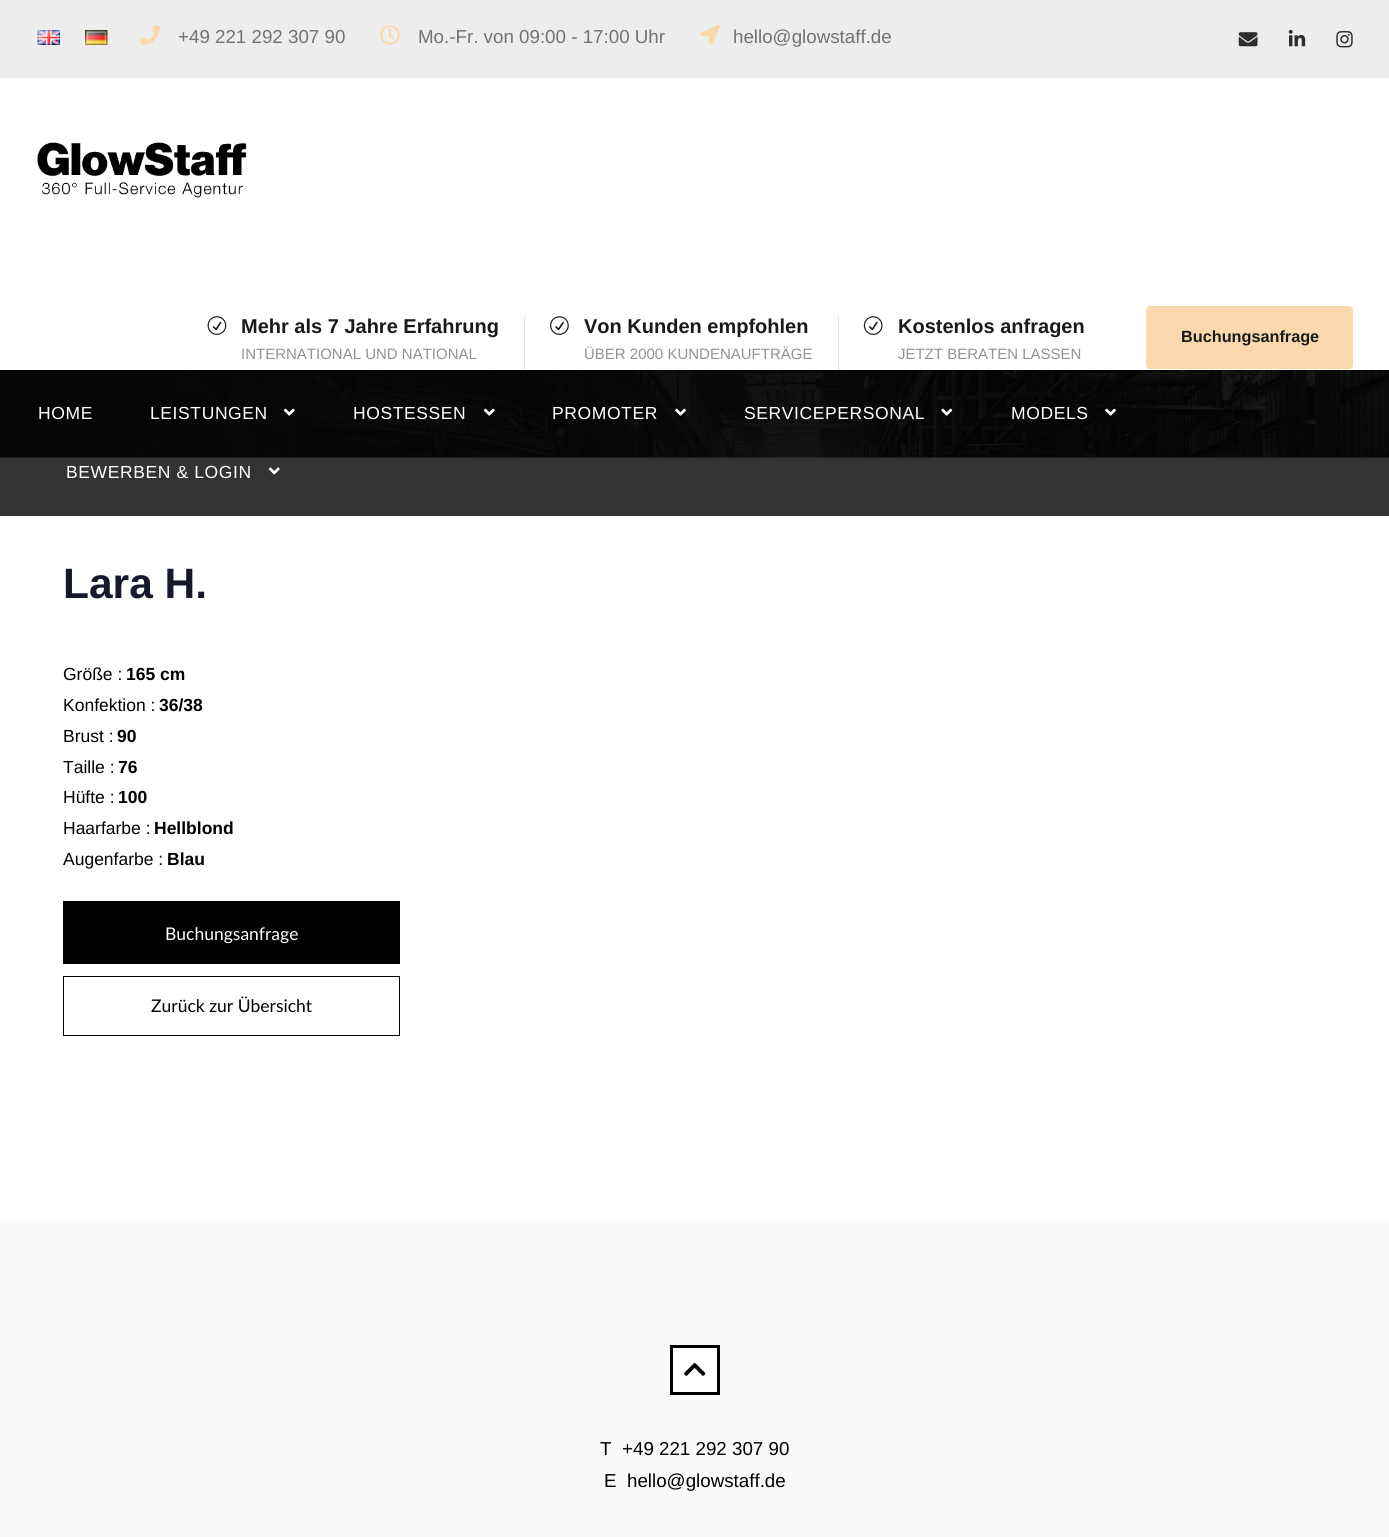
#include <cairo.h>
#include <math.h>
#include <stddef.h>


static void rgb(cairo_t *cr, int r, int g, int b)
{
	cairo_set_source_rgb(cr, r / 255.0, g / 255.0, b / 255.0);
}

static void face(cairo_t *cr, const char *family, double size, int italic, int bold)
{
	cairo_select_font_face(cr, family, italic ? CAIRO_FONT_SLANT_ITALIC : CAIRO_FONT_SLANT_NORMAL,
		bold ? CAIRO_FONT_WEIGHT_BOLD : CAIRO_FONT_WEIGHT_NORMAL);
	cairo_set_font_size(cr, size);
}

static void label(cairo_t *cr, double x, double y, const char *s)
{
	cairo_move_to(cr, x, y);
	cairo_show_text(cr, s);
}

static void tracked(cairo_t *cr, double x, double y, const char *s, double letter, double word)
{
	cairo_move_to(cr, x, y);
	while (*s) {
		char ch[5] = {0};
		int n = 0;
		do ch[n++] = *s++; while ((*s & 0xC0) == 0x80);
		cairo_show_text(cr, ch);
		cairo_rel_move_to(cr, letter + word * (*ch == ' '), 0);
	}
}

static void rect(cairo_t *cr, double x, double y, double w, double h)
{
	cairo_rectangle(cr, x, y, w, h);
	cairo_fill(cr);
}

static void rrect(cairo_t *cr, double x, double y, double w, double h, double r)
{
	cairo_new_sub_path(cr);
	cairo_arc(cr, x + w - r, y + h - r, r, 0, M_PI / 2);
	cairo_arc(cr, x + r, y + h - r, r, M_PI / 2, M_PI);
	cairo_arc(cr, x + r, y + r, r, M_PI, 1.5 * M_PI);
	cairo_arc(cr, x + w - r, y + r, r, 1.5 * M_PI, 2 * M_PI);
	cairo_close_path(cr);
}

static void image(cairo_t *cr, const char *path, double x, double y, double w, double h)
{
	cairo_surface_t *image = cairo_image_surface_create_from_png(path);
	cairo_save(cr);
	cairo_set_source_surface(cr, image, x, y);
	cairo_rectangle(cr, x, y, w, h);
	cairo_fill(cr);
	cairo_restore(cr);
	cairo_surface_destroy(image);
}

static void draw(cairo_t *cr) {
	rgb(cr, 255, 255, 255);
	cairo_paint(cr);
	rgb(cr, 51, 51, 51);
	rect(cr, 0, 457, 1389, 59);
	rgb(cr, 237, 237, 237);
	rect(cr, 0, 0, 1389, 78);
	image(cr, "image0.png", 37, 30, 23, 15);
	image(cr, "image1.png", 85, 30, 23, 15);
	image(cr, "image2.png", 140, 25, 20, 20);
	face(cr, "Liberation Sans", 18.75, 0, 0);
	rgb(cr, 114, 114, 114);
	label(cr, 178, 43, "+49 221 292 307 90");
	image(cr, "image3.png", 380, 25, 20, 20);
	label(cr, 418, 43, "Mo.-Fr. von 09:00 - 17:00 Uhr");
	image(cr, "image4.png", 700, 25, 20, 20);
	label(cr, 733, 43, "hello@glowstaff.de");
	image(cr, "image5.png", 1238, 32, 20, 15);
	image(cr, "image6.png", 1288, 29, 18, 18);
	image(cr, "image7.png", 1336, 31, 17, 17);
	image(cr, "image8.png", 37, 142, 210, 56);
	image(cr, "image9.png", 207, 316, 20, 19);
	face(cr, "Liberation Sans", 20, 0, 1);
	rgb(cr, 25, 25, 25);
	label(cr, 241, 333, "Mehr als 7 Jahre Erfahrung");
	face(cr, "Liberation Sans", 15, 0, 0);
	rgb(cr, 146, 146, 146);
	label(cr, 241, 359, "INTERNATIONAL UND NATIONAL");
	rgb(cr, 230, 230, 230);
	rect(cr, 524, 314, 1, 56);
	image(cr, "image10.png", 550, 316, 19, 19);
	face(cr, "Liberation Sans", 20, 0, 1);
	rgb(cr, 25, 25, 25);
	label(cr, 584, 333, "Von Kunden empfohlen");
	face(cr, "Liberation Sans", 15, 0, 0);
	rgb(cr, 146, 146, 146);
	label(cr, 584, 359, "ÜBER 2000 KUNDENAUFTRÄGE");
	rgb(cr, 230, 230, 230);
	rect(cr, 838, 314, 1, 56);
	image(cr, "image11.png", 863, 316, 20, 19);
	face(cr, "Liberation Sans", 20, 0, 1);
	rgb(cr, 25, 25, 25);
	label(cr, 898, 333, "Kostenlos anfragen");
	face(cr, "Liberation Sans", 15, 0, 0);
	rgb(cr, 146, 146, 146);
	label(cr, 898, 359, "JETZT BERATEN LASSEN");
	rgb(cr, 249, 217, 172);
	rrect(cr, 1147.5, 307.5, 204, 60, 2.5);
	cairo_fill_preserve(cr);
	cairo_set_line_width(cr, 3);
	cairo_stroke(cr);
	face(cr, "Liberation Sans", 16.25, 0, 1);
	rgb(cr, 25, 25, 25);
	label(cr, 1181, 342, "Buchungsanfrage");
	image(cr, "image18.png", 0, 370, 1389, 88);
	face(cr, "Liberation Sans", 17.5, 0, 0);
	rgb(cr, 255, 255, 255);
	tracked(cr, 38, 419, "HOME", 0.6, 0);
	tracked(cr, 150, 419, "LEISTUNGEN", 0.6, 0);
	image(cr, "image12.png", 283, 408, 12, 8);
	tracked(cr, 353, 419, "HOSTESSEN", 0.6, 0);
	image(cr, "image13.png", 483, 408, 12, 8);
	tracked(cr, 552, 419, "PROMOTER", 0.6, 0);
	image(cr, "image14.png", 675, 408, 11, 8);
	tracked(cr, 744, 419, "SERVICEPERSONAL", 0.6, 0);
	image(cr, "image15.png", 941, 408, 12, 8);
	tracked(cr, 1011, 419, "MODELS", 0.6, 0);
	image(cr, "image16.png", 1105, 408, 11, 8);
	tracked(cr, 66, 478, "BEWERBEN & LOGIN", 0.6, 0);
	image(cr, "image17.png", 268, 467, 12, 8);
	face(cr, "Liberation Sans", 42.5, 0, 1);
	rgb(cr, 22, 25, 43);
	label(cr, 63, 598, "Lara H.");
	face(cr, "Liberation Sans", 17.5, 0, 0);
	rgb(cr, 0, 0, 0);
	label(cr, 63, 680, "Größe :");
	face(cr, "Liberation Sans", 17.5, 0, 1);
	label(cr, 126, 680, "165 cm");
	face(cr, "Liberation Sans", 17.5, 0, 0);
	label(cr, 63, 711, "Konfektion :");
	face(cr, "Liberation Sans", 17.5, 0, 1);
	label(cr, 159, 711, "36/38");
	face(cr, "Liberation Sans", 17.5, 0, 0);
	label(cr, 63, 742, "Brust :");
	face(cr, "Liberation Sans", 17.5, 0, 1);
	label(cr, 117, 742, "90");
	face(cr, "Liberation Sans", 17.5, 0, 0);
	label(cr, 63, 773, "Taille :");
	face(cr, "Liberation Sans", 17.5, 0, 1);
	label(cr, 118, 773, "76");
	face(cr, "Liberation Sans", 17.5, 0, 0);
	label(cr, 63, 803, "Hüfte :");
	face(cr, "Liberation Sans", 17.5, 0, 1);
	label(cr, 118, 803, "100");
	face(cr, "Liberation Sans", 17.5, 0, 0);
	label(cr, 63, 834, "Haarfarbe :");
	face(cr, "Liberation Sans", 17.5, 0, 1);
	label(cr, 154, 834, "Hellblond");
	face(cr, "Liberation Sans", 17.5, 0, 0);
	label(cr, 63, 865, "Augenfarbe :");
	face(cr, "Liberation Sans", 17.5, 0, 1);
	label(cr, 167, 865, "Blau");
	rect(cr, 63, 901, 337, 63);
	face(cr, "Lato", 17.5, 0, 0);
	rgb(cr, 255, 255, 255);
	label(cr, 165, 940, "Buchungsanfrage");
	cairo_rectangle(cr, 63.5, 976.5, 336, 59);
	rgb(cr, 0, 0, 0);
	cairo_set_line_width(cr, 1);
	cairo_stroke(cr);
	label(cr, 151, 1012, "Zurück zur Übersicht");
	rgb(cr, 250, 250, 250);
	rect(cr, 0, 1220, 1389, 317);
	rgb(cr, 255, 255, 255);
	cairo_rectangle(cr, 671.5, 1346.5, 47, 47);
	cairo_fill_preserve(cr);
	rgb(cr, 0, 0, 0);
	cairo_set_line_width(cr, 3);
	cairo_stroke(cr);
	image(cr, "image19.png", 684, 1362, 22, 14);
	face(cr, "Liberation Sans", 18.75, 0, 0);
	label(cr, 600, 1455, "T");
	label(cr, 622, 1455, "+49 221 292 307 90");
	label(cr, 604, 1487, "E");
	label(cr, 627, 1487, "hello@glowstaff.de");
}

int main(void) {
	cairo_surface_t *surface = cairo_image_surface_create(CAIRO_FORMAT_RGB24, 1389, 1537);
	cairo_t *cr = cairo_create(surface);
	cairo_font_options_t *options = cairo_font_options_create();
	cairo_font_options_set_hint_metrics(options, CAIRO_HINT_METRICS_OFF);
	cairo_font_options_set_hint_style(options, CAIRO_HINT_STYLE_NONE);
	cairo_set_font_options(cr, options);
	cairo_set_miter_limit(cr, 4);
	draw(cr);
	cairo_surface_write_to_png(surface, "render.png");
	cairo_font_options_destroy(options);
	cairo_destroy(cr);
	cairo_surface_destroy(surface);
	return 0;
}
